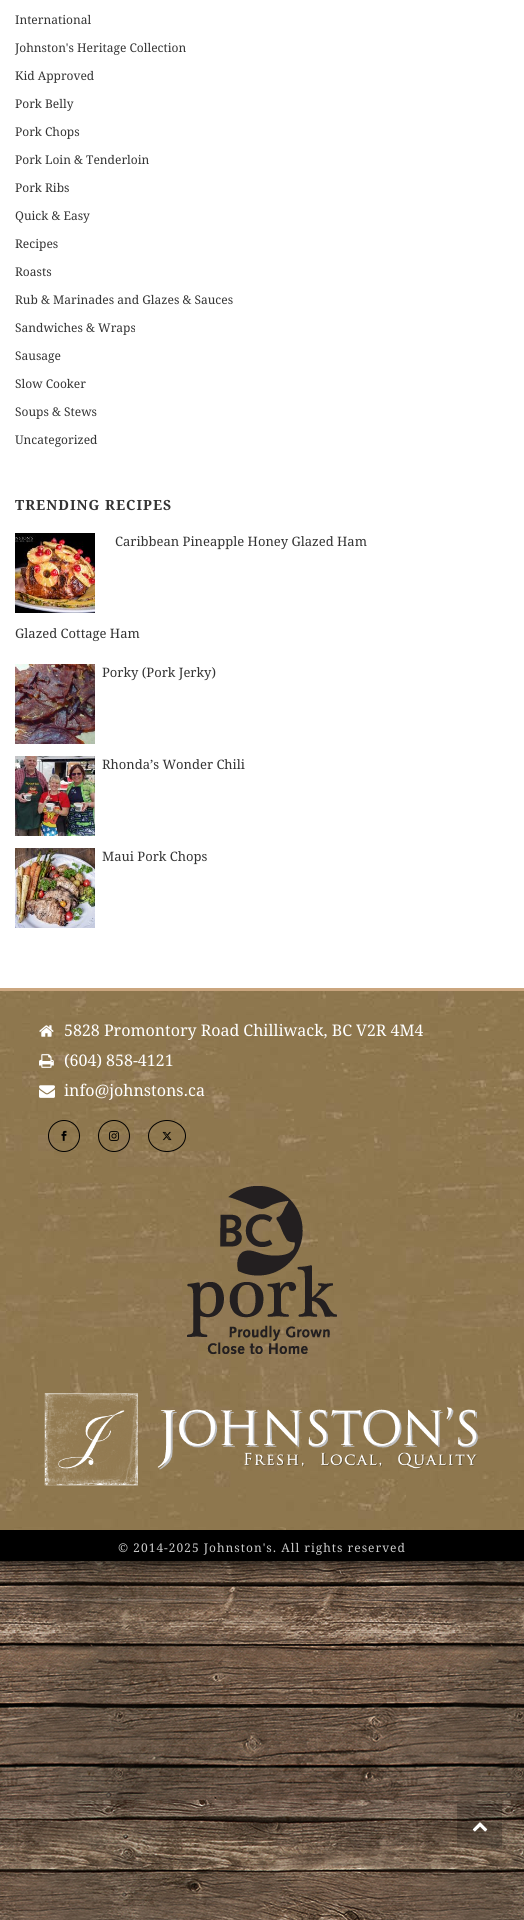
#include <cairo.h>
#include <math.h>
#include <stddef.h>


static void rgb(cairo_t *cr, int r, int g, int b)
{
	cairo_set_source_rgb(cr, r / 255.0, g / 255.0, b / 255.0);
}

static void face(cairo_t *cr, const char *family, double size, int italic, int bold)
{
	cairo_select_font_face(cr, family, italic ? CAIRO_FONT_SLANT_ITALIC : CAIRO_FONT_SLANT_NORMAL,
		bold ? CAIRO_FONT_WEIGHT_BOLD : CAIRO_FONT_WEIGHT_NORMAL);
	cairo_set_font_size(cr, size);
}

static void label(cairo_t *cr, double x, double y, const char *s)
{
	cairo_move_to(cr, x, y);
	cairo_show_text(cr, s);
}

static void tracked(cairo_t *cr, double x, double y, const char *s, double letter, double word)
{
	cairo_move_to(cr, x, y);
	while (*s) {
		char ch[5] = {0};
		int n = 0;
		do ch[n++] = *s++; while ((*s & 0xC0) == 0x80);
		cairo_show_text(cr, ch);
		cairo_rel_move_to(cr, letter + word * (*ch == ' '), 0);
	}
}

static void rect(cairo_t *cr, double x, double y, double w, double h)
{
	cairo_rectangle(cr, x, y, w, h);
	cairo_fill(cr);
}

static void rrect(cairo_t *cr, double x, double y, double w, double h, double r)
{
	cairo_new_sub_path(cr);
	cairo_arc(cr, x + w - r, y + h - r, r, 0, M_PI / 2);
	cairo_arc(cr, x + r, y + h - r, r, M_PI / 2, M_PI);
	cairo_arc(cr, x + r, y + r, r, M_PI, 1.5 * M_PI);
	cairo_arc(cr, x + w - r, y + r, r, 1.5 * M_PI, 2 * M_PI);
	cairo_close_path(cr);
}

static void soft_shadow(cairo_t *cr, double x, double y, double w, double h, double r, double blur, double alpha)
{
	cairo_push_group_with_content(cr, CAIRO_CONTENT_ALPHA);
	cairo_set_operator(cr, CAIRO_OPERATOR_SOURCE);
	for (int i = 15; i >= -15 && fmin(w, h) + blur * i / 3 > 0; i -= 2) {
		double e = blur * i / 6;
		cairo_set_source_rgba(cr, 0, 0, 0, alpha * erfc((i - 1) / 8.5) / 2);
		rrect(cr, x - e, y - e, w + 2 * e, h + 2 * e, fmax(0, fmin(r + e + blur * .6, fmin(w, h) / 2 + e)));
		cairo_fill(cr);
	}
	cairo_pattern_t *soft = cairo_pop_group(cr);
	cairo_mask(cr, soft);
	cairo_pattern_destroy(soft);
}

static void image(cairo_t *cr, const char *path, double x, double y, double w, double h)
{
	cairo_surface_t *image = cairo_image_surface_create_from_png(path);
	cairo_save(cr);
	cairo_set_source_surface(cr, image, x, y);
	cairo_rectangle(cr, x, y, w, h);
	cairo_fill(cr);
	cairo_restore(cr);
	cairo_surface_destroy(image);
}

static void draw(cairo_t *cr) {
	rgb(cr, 255, 255, 255);
	cairo_paint(cr);
	image(cr, "image0.png", 0, 1561, 524, 359);
	rgb(cr, 0, 0, 0);
	soft_shadow(cr, 0, -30, 524, 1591, 0, 10, 1);
	rgb(cr, 255, 255, 255);
	rect(cr, 0, 0, 524, 988);
	face(cr, "Droid Serif", 12, 0, 0);
	rgb(cr, 51, 51, 51);
	label(cr, 15, 24, "International");
	label(cr, 15, 52, "Johnston's Heritage Collection");
	label(cr, 15, 80, "Kid Approved");
	label(cr, 15, 108, "Pork Belly");
	label(cr, 15, 136, "Pork Chops");
	label(cr, 15, 164, "Pork Loin & Tenderloin");
	label(cr, 15, 192, "Pork Ribs");
	label(cr, 15, 220, "Quick & Easy");
	label(cr, 15, 248, "Recipes");
	label(cr, 15, 276, "Roasts");
	label(cr, 15, 304, "Rub & Marinades and Glazes & Sauces");
	label(cr, 15, 332, "Sandwiches & Wraps");
	label(cr, 15, 360, "Sausage");
	label(cr, 15, 388, "Slow Cooker");
	label(cr, 15, 416, "Soups & Stews");
	label(cr, 15, 444, "Uncategorized");
	face(cr, "Droid Serif", 14, 0, 1);
	tracked(cr, 15, 510, "TRENDING RECIPES", 1, 0);
	image(cr, "image1.png", 15, 533, 80, 80);
	face(cr, "Droid Serif", 13, 0, 0);
	label(cr, 115, 546, "Caribbean Pineapple Honey Glazed Ham");
	label(cr, 15, 638, "Glazed Cottage Ham");
	image(cr, "image2.png", 15, 664, 80, 80);
	label(cr, 102, 677, "Porky (Pork Jerky)");
	image(cr, "image3.png", 15, 756, 80, 80);
	label(cr, 102, 769, "Rhonda’s Wonder Chili");
	image(cr, "image4.png", 15, 848, 80, 80);
	label(cr, 102, 861, "Maui Pork Chops");
	image(cr, "image5.png", 0, 991, 524, 539);
	rgb(cr, 203, 166, 127);
	rect(cr, 0, 988, 524, 3);
	image(cr, "image6.png", 39, 1025, 15, 12);
	face(cr, "Droid Serif", 16, 0, 0);
	rgb(cr, 255, 255, 255);
	label(cr, 64, 1036, "5828 Promontory Road Chilliwack, BC V2R 4M4");
	image(cr, "image7.png", 39, 1054, 15, 14);
	label(cr, 64, 1066, "(604) 858-4121");
	image(cr, "image8.png", 39, 1085, 16, 13);
	label(cr, 64, 1096, "info@johnstons.ca");
	cairo_new_path(cr);
	cairo_arc(cr, 64, 1136, 15.5, 0, 2 * M_PI);
	rgb(cr, 0, 0, 0);
	cairo_set_line_width(cr, 1);
	cairo_stroke(cr);
	image(cr, "image9.png", 61, 1130, 6, 11);
	cairo_arc(cr, 114, 1136, 15.5, 0, 2 * M_PI);
	cairo_stroke(cr);
	image(cr, "image10.png", 109, 1131, 10, 10);
	cairo_new_path(cr);
	cairo_move_to(cr, 167, 1120.5);
	cairo_curve_to(cr, 177, 1120.5, 185.5, 1127.5, 185.5, 1136);
	cairo_curve_to(cr, 185.5, 1144.5, 177, 1151.5, 167, 1151.5);
	cairo_curve_to(cr, 157, 1151.5, 148.5, 1144.5, 148.5, 1136);
	cairo_curve_to(cr, 148.5, 1127.5, 157, 1120.5, 167, 1120.5);
	cairo_close_path(cr);
	cairo_stroke(cr);
	image(cr, "image11.png", 162, 1131, 10, 10);
	image(cr, "image12.png", 187, 1186, 150, 168);
	image(cr, "image13.png", 44, 1393, 434, 93);
	rect(cr, 0, 1530, 524, 31);
	face(cr, "Droid Serif", 12, 0, 0);
	rgb(cr, 204, 204, 204);
	tracked(cr, 118, 1552, "© 2014-2025 Johnston's. All rights reserved", 1, 0);
	cairo_set_source_rgba(cr, 0, 0, 0, 0.2);
	rect(cr, 457, 1803, 45, 45);
	image(cr, "image14.png", 472, 1822, 16, 10);
}

int main(void) {
	cairo_surface_t *surface = cairo_image_surface_create(CAIRO_FORMAT_RGB24, 524, 1920);
	cairo_t *cr = cairo_create(surface);
	cairo_font_options_t *options = cairo_font_options_create();
	cairo_font_options_set_hint_metrics(options, CAIRO_HINT_METRICS_OFF);
	cairo_font_options_set_hint_style(options, CAIRO_HINT_STYLE_NONE);
	cairo_set_font_options(cr, options);
	cairo_set_miter_limit(cr, 4);
	draw(cr);
	cairo_surface_write_to_png(surface, "render.png");
	cairo_font_options_destroy(options);
	cairo_destroy(cr);
	cairo_surface_destroy(surface);
	return 0;
}
